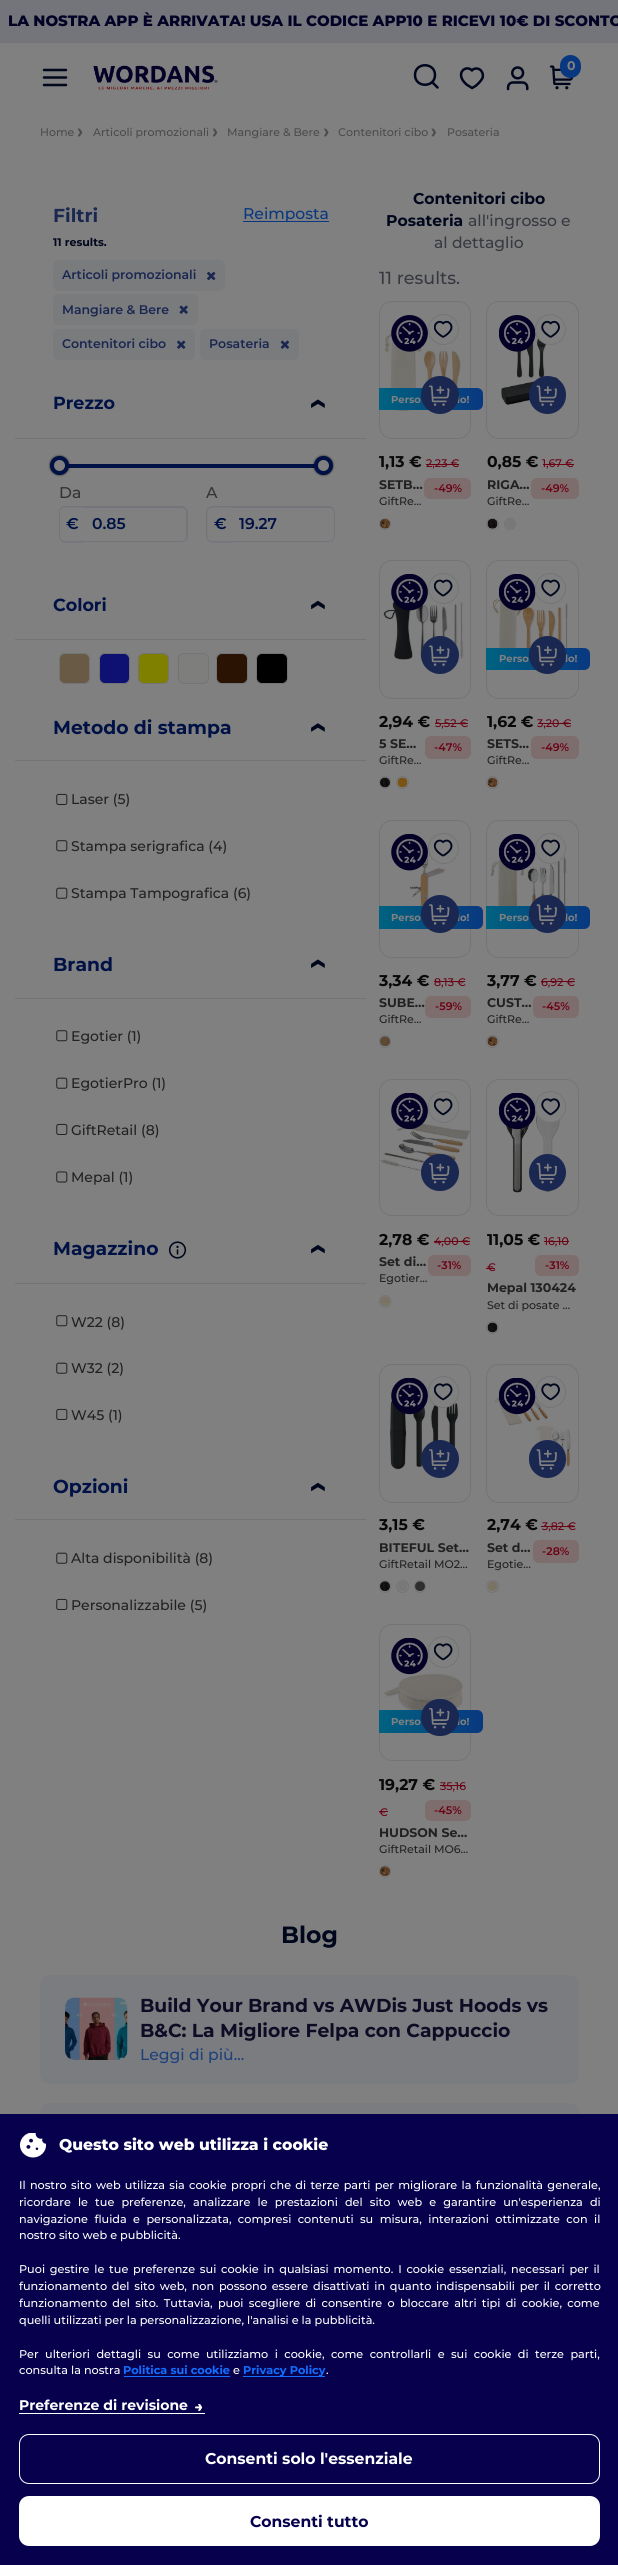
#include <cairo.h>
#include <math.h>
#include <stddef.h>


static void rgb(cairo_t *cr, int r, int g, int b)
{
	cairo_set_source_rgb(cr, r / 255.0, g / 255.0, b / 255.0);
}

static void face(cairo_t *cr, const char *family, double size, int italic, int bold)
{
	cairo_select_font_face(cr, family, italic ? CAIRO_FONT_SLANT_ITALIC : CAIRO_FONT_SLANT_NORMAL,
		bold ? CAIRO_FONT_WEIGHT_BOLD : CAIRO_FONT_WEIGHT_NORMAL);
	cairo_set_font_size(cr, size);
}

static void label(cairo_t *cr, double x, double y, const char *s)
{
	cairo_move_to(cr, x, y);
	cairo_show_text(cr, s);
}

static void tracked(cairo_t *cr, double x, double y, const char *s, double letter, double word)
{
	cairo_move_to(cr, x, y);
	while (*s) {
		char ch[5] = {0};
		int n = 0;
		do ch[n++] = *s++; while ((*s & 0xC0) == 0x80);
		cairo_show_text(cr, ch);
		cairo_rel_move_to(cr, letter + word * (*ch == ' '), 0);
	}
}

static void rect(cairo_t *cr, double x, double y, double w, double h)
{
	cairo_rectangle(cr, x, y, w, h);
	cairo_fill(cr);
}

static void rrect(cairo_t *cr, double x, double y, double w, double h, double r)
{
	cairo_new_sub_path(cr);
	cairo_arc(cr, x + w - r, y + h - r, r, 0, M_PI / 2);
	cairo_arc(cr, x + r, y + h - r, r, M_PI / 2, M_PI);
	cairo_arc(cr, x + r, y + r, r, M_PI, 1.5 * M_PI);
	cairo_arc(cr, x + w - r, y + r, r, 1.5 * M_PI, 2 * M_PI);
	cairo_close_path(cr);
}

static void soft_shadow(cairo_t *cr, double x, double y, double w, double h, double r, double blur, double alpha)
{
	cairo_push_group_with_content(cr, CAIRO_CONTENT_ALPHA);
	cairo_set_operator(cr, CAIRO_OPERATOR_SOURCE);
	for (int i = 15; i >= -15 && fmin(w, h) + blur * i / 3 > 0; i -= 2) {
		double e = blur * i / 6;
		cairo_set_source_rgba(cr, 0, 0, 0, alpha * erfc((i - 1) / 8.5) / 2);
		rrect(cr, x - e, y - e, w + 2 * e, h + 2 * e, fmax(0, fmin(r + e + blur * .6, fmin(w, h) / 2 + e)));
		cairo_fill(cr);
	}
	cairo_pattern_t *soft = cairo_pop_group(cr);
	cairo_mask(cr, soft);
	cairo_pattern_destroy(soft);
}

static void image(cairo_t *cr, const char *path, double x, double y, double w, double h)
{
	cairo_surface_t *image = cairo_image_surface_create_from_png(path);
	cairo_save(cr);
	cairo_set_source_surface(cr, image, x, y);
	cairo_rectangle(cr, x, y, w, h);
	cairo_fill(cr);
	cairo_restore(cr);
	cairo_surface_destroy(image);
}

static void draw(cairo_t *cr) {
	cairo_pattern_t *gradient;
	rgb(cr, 128, 128, 128);
	cairo_paint(cr);
	rgb(cr, 115, 117, 122);
	rect(cr, 0, 0, 618, 43);
	face(cr, "Montserrat ExtraBold", 15, 0, 0);
	rgb(cr, 4, 1, 38);
	label(cr, 8, 26, "LA NOSTRA APP È ARRIVATA! USA IL CODICE APP10 E RICEVI 10€ DI SCONTO");
	cairo_new_path(cr);
	cairo_move_to(cr, 44, 77.5);
	cairo_line_to(cr, 66, 77.5);
	cairo_move_to(cr, 44, 70);
	cairo_line_to(cr, 66, 70);
	cairo_move_to(cr, 44, 85);
	cairo_line_to(cr, 66, 85);
	rgb(cr, 0, 7, 29);
	cairo_set_line_width(cr, 2.5);
	cairo_set_line_cap(cr, CAIRO_LINE_CAP_ROUND);
	cairo_set_line_join(cr, CAIRO_LINE_JOIN_ROUND);
	cairo_stroke(cr);
	image(cr, "image0.png", 93, 65, 125, 25);
	cairo_new_path(cr);
	cairo_move_to(cr, 437.5, 87.5);
	cairo_line_to(cr, 432, 82);
	cairo_move_to(cr, 435, 75);
	cairo_curve_to(cr, 435, 88, 415, 88, 415, 75);
	cairo_curve_to(cr, 415, 62, 435, 62, 435, 75);
	cairo_close_path(cr);
	cairo_stroke(cr);
	cairo_new_path(cr);
	cairo_move_to(cr, 476.5, 68.5);
	cairo_curve_to(cr, 481, 68.5, 484, 73.5, 482.5, 78);
	cairo_curve_to(cr, 481, 81, 478, 84, 475.5, 86);
	cairo_line_to(cr, 472, 88);
	cairo_line_to(cr, 466.5, 84.5);
	cairo_curve_to(cr, 454, 73.5, 466, 64, 472, 70.5);
	cairo_curve_to(cr, 472.5, 69.5, 474, 68.5, 476.5, 68.5);
	cairo_close_path(cr);
	cairo_stroke(cr);
	image(cr, "image1.png", 506, 66, 23, 25);
	image(cr, "image2.png", 549, 65, 25, 25);
	rgb(cr, 9, 56, 128);
	rrect(cr, 560, 55, 21, 23, 10.5);
	cairo_fill(cr);
	face(cr, "Montserrat", 12.5, 0, 1);
	rgb(cr, 128, 128, 128);
	label(cr, 567, 70, "0");
	face(cr, "Montserrat Medium", 11, 0, 0);
	rgb(cr, 75, 75, 75);
	label(cr, 40, 136, "Home");
	image(cr, "image3.png", 77, 128, 6, 9);
	label(cr, 93, 136, "Articoli promozionali");
	image(cr, "image3.png", 212, 128, 6, 9);
	label(cr, 227, 136, "Mangiare & Bere");
	image(cr, "image4.png", 324, 128, 5, 9);
	label(cr, 338, 136, "Contenitori cibo");
	image(cr, "image5.png", 431, 128, 5, 9);
	label(cr, 447, 136, "Posateria");
	face(cr, "Montserrat", 18.75, 0, 1);
	rgb(cr, 26, 39, 81);
	label(cr, 53, 222, "Filtri");
	rgb(cr, 9, 56, 128);
	rect(cr, 243, 221, 86, 1);
	face(cr, "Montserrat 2 Medium", 15.6, 0, 0);
	label(cr, 243, 219, "Reimposta");
	face(cr, "Montserrat", 11, 0, 1);
	rgb(cr, 0, 7, 29);
	label(cr, 53, 246, "11 results.");
	rgb(cr, 122, 123, 125);
	rrect(cr, 53, 260, 172, 31, 6);
	cairo_fill(cr);
	face(cr, "Montserrat SemiBold", 12.5, 0, 0);
	rgb(cr, 26, 39, 81);
	label(cr, 62, 279, "Articoli promozionali");
	image(cr, "image6.png", 207, 271, 9, 10);
	rgb(cr, 122, 123, 125);
	rrect(cr, 53, 294, 145, 31, 6);
	cairo_fill(cr);
	rgb(cr, 26, 39, 81);
	label(cr, 62, 314, "Mangiare & Bere");
	image(cr, "image7.png", 179, 305, 9, 9);
	rgb(cr, 122, 123, 125);
	rrect(cr, 53, 329, 142, 31, 6);
	cairo_fill(cr);
	rgb(cr, 26, 39, 81);
	label(cr, 62, 348, "Contenitori cibo");
	image(cr, "image8.png", 177, 340, 9, 9);
	rgb(cr, 122, 123, 125);
	rrect(cr, 200, 329, 99, 31, 6);
	cairo_fill(cr);
	rgb(cr, 26, 39, 81);
	label(cr, 209, 348, "Posateria");
	image(cr, "image9.png", 280, 340, 9, 9);
	face(cr, "Montserrat", 17.5, 0, 1);
	rgb(cr, 0, 17, 69);
	label(cr, 53, 409, "Prezzo");
	image(cr, "image10.png", 311, 399, 14, 9);
	rgb(cr, 115, 116, 118);
	rect(cr, 15, 438, 351, 1);
	rgb(cr, 0, 17, 69);
	rect(cr, 68, 464, 255, 4);
	rgb(cr, 0, 0, 0);
	soft_shadow(cr, 50, 456, 19, 19, 9.5, 1, 0.8);
	rgb(cr, 128, 128, 128);
	cairo_arc(cr, 59.5, 465.5, 7.5, 0, 2 * M_PI);
	cairo_fill_preserve(cr);
	rgb(cr, 0, 17, 69);
	cairo_set_line_width(cr, 4);
	cairo_set_line_cap(cr, CAIRO_LINE_CAP_BUTT);
	cairo_set_line_join(cr, CAIRO_LINE_JOIN_MITER);
	cairo_stroke(cr);
	rgb(cr, 0, 0, 0);
	soft_shadow(cr, 314, 456, 19, 19, 9.5, 1, 0.8);
	rgb(cr, 128, 128, 128);
	cairo_arc(cr, 323.5, 465.5, 7.5, 0, 2 * M_PI);
	cairo_fill_preserve(cr);
	rgb(cr, 0, 17, 69);
	cairo_stroke(cr);
	face(cr, "Montserrat 2 Medium", 15.6, 0, 0);
	rgb(cr, 51, 51, 51);
	label(cr, 59, 498, "Da");
	rgb(cr, 115, 117, 122);
	cairo_set_fill_rule(cr, CAIRO_FILL_RULE_EVEN_ODD);
	cairo_new_path(cr);
	cairo_move_to(cr, 65, 506);
	cairo_line_to(cr, 85, 506);
	cairo_line_to(cr, 85, 542.5);
	cairo_line_to(cr, 65, 542.5);
	cairo_curve_to(cr, 61.5, 542.5, 59, 539.5, 59, 536);
	cairo_line_to(cr, 59, 512.5);
	cairo_curve_to(cr, 59, 509, 61.5, 506, 65, 506);
	cairo_close_path(cr);
	cairo_move_to(cr, 65, 507.5);
	cairo_line_to(cr, 85, 507.5);
	cairo_line_to(cr, 85, 541);
	cairo_line_to(cr, 65, 541);
	cairo_curve_to(cr, 62, 541, 60, 539, 60, 536);
	cairo_line_to(cr, 60, 512.5);
	cairo_curve_to(cr, 60, 509.5, 62, 507.5, 65, 507.5);
	cairo_close_path(cr);
	cairo_fill(cr);
	face(cr, "Montserrat SemiBold", 15.6, 0, 0);
	rgb(cr, 0, 17, 69);
	label(cr, 66, 529, "€");
	rgb(cr, 115, 117, 122);
	cairo_new_path(cr);
	cairo_move_to(cr, 85, 506);
	cairo_line_to(cr, 181, 506);
	cairo_curve_to(cr, 185, 506, 188, 509, 188, 512);
	cairo_line_to(cr, 188, 536);
	cairo_curve_to(cr, 188, 540, 185, 542, 181, 542);
	cairo_line_to(cr, 85, 542);
	cairo_close_path(cr);
	cairo_move_to(cr, 85, 508);
	cairo_line_to(cr, 181, 508);
	cairo_curve_to(cr, 184, 508, 186, 510, 186, 512);
	cairo_line_to(cr, 186, 536);
	cairo_curve_to(cr, 186, 539, 184, 541, 181, 541);
	cairo_line_to(cr, 85, 541);
	cairo_close_path(cr);
	cairo_fill(cr);
	rgb(cr, 0, 17, 69);
	label(cr, 92, 529, "0.85");
	face(cr, "Montserrat 2 Medium", 15.6, 0, 0);
	rgb(cr, 51, 51, 51);
	label(cr, 206, 498, "A");
	rgb(cr, 115, 117, 122);
	cairo_new_path(cr);
	cairo_move_to(cr, 212.5, 506);
	cairo_line_to(cr, 232.5, 506);
	cairo_line_to(cr, 232.5, 542.5);
	cairo_line_to(cr, 212.5, 542.5);
	cairo_curve_to(cr, 209, 542.5, 206, 539.5, 206, 536);
	cairo_line_to(cr, 206, 512.5);
	cairo_curve_to(cr, 206, 509, 209, 506, 212.5, 506);
	cairo_close_path(cr);
	cairo_move_to(cr, 212.5, 507.5);
	cairo_line_to(cr, 232.5, 507.5);
	cairo_line_to(cr, 232.5, 541);
	cairo_line_to(cr, 212.5, 541);
	cairo_curve_to(cr, 209.5, 541, 207.5, 539, 207.5, 536);
	cairo_line_to(cr, 207.5, 512.5);
	cairo_curve_to(cr, 207.5, 509.5, 209.5, 507.5, 212.5, 507.5);
	cairo_close_path(cr);
	cairo_fill(cr);
	face(cr, "Montserrat SemiBold", 15.6, 0, 0);
	rgb(cr, 0, 17, 69);
	label(cr, 214, 529, "€");
	rgb(cr, 115, 117, 122);
	cairo_new_path(cr);
	cairo_move_to(cr, 232, 506);
	cairo_line_to(cr, 329, 506);
	cairo_curve_to(cr, 332, 506, 335, 509, 335, 512);
	cairo_line_to(cr, 335, 536);
	cairo_curve_to(cr, 335, 540, 332, 542, 329, 542);
	cairo_line_to(cr, 232, 542);
	cairo_close_path(cr);
	cairo_move_to(cr, 232, 508);
	cairo_line_to(cr, 329, 508);
	cairo_curve_to(cr, 332, 508, 334, 510, 334, 512);
	cairo_line_to(cr, 334, 536);
	cairo_curve_to(cr, 334, 539, 332, 541, 329, 541);
	cairo_line_to(cr, 232, 541);
	cairo_close_path(cr);
	cairo_fill(cr);
	rgb(cr, 0, 17, 69);
	label(cr, 239, 529, "19.27");
	face(cr, "Montserrat", 17.5, 0, 1);
	label(cr, 53, 611, "Colori");
	image(cr, "image11.png", 311, 600, 14, 10);
	rgb(cr, 115, 116, 118);
	rect(cr, 15, 639, 351, 1);
	rgb(cr, 105, 90, 70);
	rrect(cr, 59.5, 653.5, 30, 30, 5.5);
	cairo_fill_preserve(cr);
	rgb(cr, 115, 116, 118);
	cairo_set_line_width(cr, 1);
	cairo_stroke(cr);
	rgb(cr, 14, 17, 113);
	rrect(cr, 99.5, 653.5, 30, 30, 5.5);
	cairo_fill_preserve(cr);
	rgb(cr, 115, 116, 118);
	cairo_stroke(cr);
	rgb(cr, 128, 128, 0);
	rrect(cr, 138.5, 653.5, 30, 30, 5.5);
	cairo_fill_preserve(cr);
	rgb(cr, 115, 116, 118);
	cairo_stroke(cr);
	rgb(cr, 126, 126, 125);
	rrect(cr, 178.5, 653.5, 30, 30, 5.5);
	cairo_fill_preserve(cr);
	rgb(cr, 115, 116, 118);
	cairo_stroke(cr);
	rgb(cr, 43, 19, 4);
	rrect(cr, 216.5, 653.5, 31, 30, 5.5);
	cairo_fill_preserve(cr);
	rgb(cr, 115, 116, 118);
	cairo_stroke(cr);
	rgb(cr, 0, 0, 0);
	rrect(cr, 256.5, 653.5, 31, 30, 5.5);
	cairo_fill_preserve(cr);
	rgb(cr, 115, 116, 118);
	cairo_stroke(cr);
	face(cr, "Montserrat", 18.75, 0, 1);
	rgb(cr, 0, 17, 69);
	label(cr, 53, 734, "Metodo di stampa");
	image(cr, "image12.png", 311, 723, 14, 9);
	rgb(cr, 115, 116, 118);
	rect(cr, 15, 760, 351, 1);
	image(cr, "image13.png", 56, 793, 12, 12);
	face(cr, "Montserrat 2 Medium", 14, 0, 0);
	rgb(cr, 33, 33, 33);
	label(cr, 71, 804, "Laser (5)");
	image(cr, "image14.png", 56, 840, 12, 12);
	label(cr, 71, 851, "Stampa serigrafica (4)");
	image(cr, "image15.png", 56, 887, 12, 12);
	label(cr, 71, 898, "Stampa Tampografica (6)");
	face(cr, "Montserrat", 18.75, 0, 1);
	rgb(cr, 0, 17, 69);
	label(cr, 53, 971, "Brand");
	image(cr, "image10.png", 311, 959, 14, 9);
	rgb(cr, 115, 116, 118);
	rect(cr, 15, 998, 351, 1);
	image(cr, "image14.png", 56, 1030, 12, 12);
	face(cr, "Montserrat 2 Medium", 14, 0, 0);
	rgb(cr, 33, 33, 33);
	label(cr, 71, 1041, "Egotier (1)");
	image(cr, "image15.png", 56, 1077, 12, 12);
	label(cr, 71, 1088, "EgotierPro (1)");
	image(cr, "image13.png", 56, 1123, 12, 12);
	label(cr, 71, 1135, "GiftRetail (8)");
	image(cr, "image16.png", 56, 1171, 12, 12);
	label(cr, 71, 1182, "Mepal (1)");
	face(cr, "Montserrat", 18.75, 0, 1);
	rgb(cr, 0, 17, 69);
	label(cr, 53, 1255, "Magazzino");
	image(cr, "image17.png", 168, 1241, 19, 18);
	image(cr, "image18.png", 311, 1244, 14, 10);
	rgb(cr, 115, 116, 118);
	rect(cr, 15, 1283, 351, 1);
	image(cr, "image14.png", 56, 1315, 12, 12);
	face(cr, "Montserrat 2 Medium", 14, 0, 0);
	rgb(cr, 33, 33, 33);
	label(cr, 71, 1327, "W22 (8)");
	image(cr, "image15.png", 56, 1362, 12, 12);
	label(cr, 71, 1373, "W32 (2)");
	image(cr, "image13.png", 56, 1408, 12, 12);
	label(cr, 71, 1420, "W45 (1)");
	face(cr, "Montserrat", 18.75, 0, 1);
	rgb(cr, 0, 17, 69);
	label(cr, 53, 1493, "Opzioni");
	image(cr, "image19.png", 311, 1482, 14, 10);
	rgb(cr, 115, 116, 118);
	rect(cr, 15, 1519, 351, 1);
	image(cr, "image15.png", 56, 1552, 12, 12);
	face(cr, "Montserrat 2 Medium", 14, 0, 0);
	rgb(cr, 33, 33, 33);
	label(cr, 71, 1563, "Alta disponibilità (8)");
	image(cr, "image13.png", 56, 1598, 12, 12);
	label(cr, 71, 1610, "Personalizzabile (5)");
	face(cr, "Montserrat", 15.6, 0, 1);
	rgb(cr, 0, 7, 29);
	label(cr, 413, 204, "Contenitori cibo");
	label(cr, 386, 226, "Posateria");
	face(cr, "Montserrat 2 Medium", 15.6, 0, 0);
	rgb(cr, 54, 57, 64);
	label(cr, 468, 226, "all'ingrosso e");
	label(cr, 434, 248, "al dettaglio");
	face(cr, "Montserrat 2 Medium", 17.5, 0, 0);
	label(cr, 379, 284, "11 results.");
	rrect(cr, 379.5, 301.5, 91, 137, 12.5);
	rgb(cr, 115, 116, 118);
	cairo_stroke(cr);
	image(cr, "image21.png", 384, 329, 77, 82);
	cairo_arc(cr, 443.5, 329.5, 15, 0, 2 * M_PI);
	cairo_stroke(cr);
	image(cr, "image20.png", 434, 320, 19, 18);
	gradient = cairo_pattern_create_linear(379, 399, 483, 399);
	cairo_pattern_add_color_stop_rgba(gradient, 0, 0, 0.384, 0.502, 1);
	cairo_pattern_add_color_stop_rgba(gradient, 1, 0.035, 0.22, 0.502, 1);
	cairo_set_source(cr, gradient);
	cairo_pattern_destroy(gradient);
	cairo_new_path(cr);
	cairo_move_to(cr, 379, 388);
	cairo_line_to(cr, 477, 388);
	cairo_curve_to(cr, 480.5, 388, 483, 390.5, 483, 394);
	cairo_line_to(cr, 483, 404);
	cairo_curve_to(cr, 483, 407.5, 480.5, 410, 477, 410);
	cairo_line_to(cr, 379, 410);
	cairo_close_path(cr);
	cairo_fill(cr);
	face(cr, "Montserrat", 10, 0, 1);
	rgb(cr, 128, 128, 128);
	label(cr, 457, 403, "lo!");
	image(cr, "image22.png", 421, 376, 38, 38);
	image(cr, "image23.png", 391, 315, 37, 37);
	label(cr, 391, 403, "Perso");
	face(cr, "Montserrat", 15.6, 0, 1);
	rgb(cr, 9, 9, 9);
	label(cr, 379, 467, "1,13 €");
	face(cr, "Montserrat 2 Medium", 11, 0, 0);
	rgb(cr, 108, 0, 20);
	label(cr, 426, 467, "2,23 €");
	rect(cr, 426, 464, 33, 1);
	face(cr, "Montserrat", 12.5, 0, 1);
	rgb(cr, 33, 33, 33);
	label(cr, 379, 489, "SETB…");
	face(cr, "Montserrat 2 Medium", 11, 0, 0);
	label(cr, 379, 505, "GiftRe…");
	rgb(cr, 126, 109, 109);
	rrect(cr, 424, 478, 47, 21, 6);
	cairo_fill(cr);
	face(cr, "Montserrat SemiBold", 11, 0, 0);
	rgb(cr, 108, 0, 20);
	label(cr, 434, 492, "-49%");
	cairo_new_path(cr);
	cairo_arc(cr, 385, 524, 5.5, 0, 2 * M_PI);
	rgb(cr, 115, 116, 118);
	cairo_stroke(cr);
	image(cr, "image24.png", 380, 518, 10, 11);
	rrect(cr, 486.5, 301.5, 92, 137, 12.5);
	cairo_stroke(cr);
	image(cr, "image27.png", 501, 333, 62, 73);
	image(cr, "image25.png", 499, 315, 37, 37);
	rgb(cr, 128, 128, 128);
	cairo_arc(cr, 550.5, 329.5, 15, 0, 2 * M_PI);
	cairo_fill_preserve(cr);
	rgb(cr, 115, 116, 118);
	cairo_stroke(cr);
	image(cr, "image26.png", 541, 320, 19, 18);
	image(cr, "image28.png", 529, 376, 37, 38);
	face(cr, "Montserrat", 15.6, 0, 1);
	rgb(cr, 9, 9, 9);
	label(cr, 487, 467, "0,85 €");
	face(cr, "Montserrat 2 Medium", 11, 0, 0);
	rgb(cr, 108, 0, 20);
	label(cr, 542, 467, "1,67 €");
	rect(cr, 543, 464, 31, 1);
	face(cr, "Montserrat", 12.5, 0, 1);
	rgb(cr, 33, 33, 33);
	label(cr, 487, 489, "RIGA…");
	face(cr, "Montserrat 2 Medium", 11, 0, 0);
	label(cr, 487, 505, "GiftRe…");
	rgb(cr, 126, 109, 109);
	rrect(cr, 531, 478, 48, 21, 6);
	cairo_fill(cr);
	face(cr, "Montserrat SemiBold", 11, 0, 0);
	rgb(cr, 108, 0, 20);
	label(cr, 541, 492, "-49%");
	rrect(cr, 486.5, 518.5, 12, 11, 5.5);
	rgb(cr, 115, 116, 118);
	cairo_stroke(cr);
	image(cr, "image29.png", 487, 518, 11, 11);
	cairo_arc(cr, 510, 524, 5.5, 0, 2 * M_PI);
	cairo_stroke(cr);
	image(cr, "image30.png", 505, 519, 10, 10);
	rrect(cr, 379.5, 560.5, 91, 138, 12.5);
	cairo_stroke(cr);
	image(cr, "image33.png", 383, 597, 81, 63);
	image(cr, "image31.png", 391, 574, 37, 37);
	cairo_arc(cr, 443.5, 588.5, 15, 0, 2 * M_PI);
	cairo_stroke(cr);
	image(cr, "image32.png", 434, 579, 19, 18);
	image(cr, "image34.png", 421, 636, 38, 38);
	face(cr, "Montserrat", 15.6, 0, 1);
	rgb(cr, 9, 9, 9);
	label(cr, 379, 727, "2,94 €");
	face(cr, "Montserrat 2 Medium", 11, 0, 0);
	rgb(cr, 108, 0, 20);
	label(cr, 435, 727, "5,52 €");
	rect(cr, 435, 723, 33, 1);
	face(cr, "Montserrat", 12.5, 0, 1);
	rgb(cr, 33, 33, 33);
	label(cr, 379, 748, "5 SE…");
	face(cr, "Montserrat 2 Medium", 11, 0, 0);
	label(cr, 379, 764, "GiftRe…");
	rgb(cr, 126, 109, 109);
	rrect(cr, 425, 736, 46, 23, 6);
	cairo_fill(cr);
	face(cr, "Montserrat SemiBold", 11, 0, 0);
	rgb(cr, 108, 0, 20);
	label(cr, 434, 751, "-47%");
	rrect(cr, 379.5, 776.5, 11, 12, 5.5);
	rgb(cr, 115, 116, 118);
	cairo_stroke(cr);
	cairo_arc(cr, 402.5, 782.5, 6, 0, 2 * M_PI);
	cairo_stroke(cr);
	image(cr, "image35.png", 380, 777, 10, 11);
	image(cr, "image36.png", 397, 777, 11, 11);
	rrect(cr, 486.5, 560.5, 92, 138, 12.5);
	cairo_stroke(cr);
	image(cr, "image38.png", 493, 597, 75, 51);
	image(cr, "image40.png", 499, 574, 37, 37);
	rgb(cr, 128, 128, 128);
	cairo_arc(cr, 550.5, 588.5, 15, 0, 2 * M_PI);
	cairo_fill_preserve(cr);
	rgb(cr, 115, 116, 118);
	cairo_stroke(cr);
	image(cr, "image37.png", 541, 579, 19, 18);
	gradient = cairo_pattern_create_linear(486, 659, 590, 659);
	cairo_pattern_add_color_stop_rgba(gradient, 0, 0, 0.384, 0.502, 1);
	cairo_pattern_add_color_stop_rgba(gradient, 1, 0.035, 0.22, 0.502, 1);
	cairo_set_source(cr, gradient);
	cairo_pattern_destroy(gradient);
	cairo_new_path(cr);
	cairo_move_to(cr, 486, 648);
	cairo_line_to(cr, 584, 648);
	cairo_curve_to(cr, 587.5, 648, 590, 650.5, 590, 654);
	cairo_line_to(cr, 590, 664);
	cairo_curve_to(cr, 590, 667.5, 587.5, 670, 584, 670);
	cairo_line_to(cr, 486, 670);
	cairo_close_path(cr);
	cairo_fill(cr);
	face(cr, "Montserrat", 10, 0, 1);
	rgb(cr, 128, 128, 128);
	label(cr, 565, 662, "lo!");
	image(cr, "image39.png", 529, 636, 37, 38);
	label(cr, 499, 662, "Perso");
	face(cr, "Montserrat", 15.6, 0, 1);
	rgb(cr, 9, 9, 9);
	label(cr, 487, 727, "1,62 €");
	face(cr, "Montserrat 2 Medium", 11, 0, 0);
	rgb(cr, 108, 0, 20);
	label(cr, 537, 727, "3,20 €");
	rect(cr, 538, 723, 33, 1);
	face(cr, "Montserrat", 12.5, 0, 1);
	rgb(cr, 33, 33, 33);
	label(cr, 487, 748, "SETS…");
	face(cr, "Montserrat 2 Medium", 11, 0, 0);
	label(cr, 487, 764, "GiftRe…");
	rgb(cr, 126, 109, 109);
	rrect(cr, 531, 736, 48, 23, 6);
	cairo_fill(cr);
	face(cr, "Montserrat SemiBold", 11, 0, 0);
	rgb(cr, 108, 0, 20);
	label(cr, 541, 751, "-49%");
	cairo_new_path(cr);
	cairo_arc(cr, 492.5, 782.5, 6, 0, 2 * M_PI);
	rgb(cr, 115, 116, 118);
	cairo_stroke(cr);
	image(cr, "image41.png", 487, 777, 11, 11);
	rrect(cr, 379.5, 820.5, 91, 137, 12.5);
	cairo_stroke(cr);
	image(cr, "image42.png", 409, 853, 36, 53);
	cairo_arc(cr, 443.5, 848.5, 15, 0, 2 * M_PI);
	cairo_stroke(cr);
	image(cr, "image32.png", 434, 839, 19, 18);
	gradient = cairo_pattern_create_linear(379, 918, 483, 918);
	cairo_pattern_add_color_stop_rgba(gradient, 0, 0, 0.384, 0.502, 1);
	cairo_pattern_add_color_stop_rgba(gradient, 1, 0.035, 0.22, 0.502, 1);
	cairo_set_source(cr, gradient);
	cairo_pattern_destroy(gradient);
	cairo_new_path(cr);
	cairo_move_to(cr, 379, 906);
	cairo_line_to(cr, 477, 906);
	cairo_curve_to(cr, 480.5, 906, 483, 908.5, 483, 912);
	cairo_line_to(cr, 483, 923);
	cairo_curve_to(cr, 483, 926.5, 480.5, 929, 477, 929);
	cairo_line_to(cr, 379, 929);
	cairo_close_path(cr);
	cairo_fill(cr);
	face(cr, "Montserrat", 10, 0, 1);
	rgb(cr, 128, 128, 128);
	label(cr, 457, 921, "lo!");
	image(cr, "image43.png", 421, 895, 38, 38);
	image(cr, "image44.png", 391, 834, 37, 37);
	label(cr, 391, 921, "Perso");
	face(cr, "Montserrat", 15.6, 0, 1);
	rgb(cr, 9, 9, 9);
	label(cr, 379, 986, "3,34 €");
	face(cr, "Montserrat 2 Medium", 11, 0, 0);
	rgb(cr, 108, 0, 20);
	label(cr, 434, 986, "8,13 €");
	rect(cr, 434, 981, 31, 1);
	face(cr, "Montserrat", 12.5, 0, 1);
	rgb(cr, 33, 33, 33);
	label(cr, 379, 1007, "SUBE…");
	face(cr, "Montserrat 2 Medium", 11, 0, 0);
	label(cr, 379, 1023, "GiftRe…");
	rgb(cr, 126, 109, 109);
	rrect(cr, 425, 996, 46, 22, 6);
	cairo_fill(cr);
	face(cr, "Montserrat SemiBold", 11, 0, 0);
	rgb(cr, 108, 0, 20);
	label(cr, 435, 1010, "-59%");
	rrect(cr, 379.5, 1035.5, 11, 12, 5.5);
	rgb(cr, 115, 116, 118);
	cairo_stroke(cr);
	image(cr, "image45.png", 380, 1036, 10, 11);
	rrect(cr, 486.5, 820.5, 92, 137, 12.5);
	cairo_stroke(cr);
	image(cr, "image46.png", 490, 856, 77, 50);
	image(cr, "image48.png", 499, 834, 37, 37);
	rgb(cr, 128, 128, 128);
	cairo_arc(cr, 550.5, 848.5, 15, 0, 2 * M_PI);
	cairo_fill_preserve(cr);
	rgb(cr, 115, 116, 118);
	cairo_stroke(cr);
	image(cr, "image37.png", 541, 839, 19, 18);
	gradient = cairo_pattern_create_linear(486, 918, 590, 918);
	cairo_pattern_add_color_stop_rgba(gradient, 0, 0, 0.384, 0.502, 1);
	cairo_pattern_add_color_stop_rgba(gradient, 1, 0.035, 0.22, 0.502, 1);
	cairo_set_source(cr, gradient);
	cairo_pattern_destroy(gradient);
	cairo_new_path(cr);
	cairo_move_to(cr, 486, 906);
	cairo_line_to(cr, 584, 906);
	cairo_curve_to(cr, 587.5, 906, 590, 908.5, 590, 912);
	cairo_line_to(cr, 590, 923);
	cairo_curve_to(cr, 590, 926.5, 587.5, 929, 584, 929);
	cairo_line_to(cr, 486, 929);
	cairo_close_path(cr);
	cairo_fill(cr);
	face(cr, "Montserrat", 10, 0, 1);
	rgb(cr, 128, 128, 128);
	label(cr, 565, 921, "lo!");
	image(cr, "image47.png", 529, 895, 37, 38);
	label(cr, 499, 921, "Perso");
	face(cr, "Montserrat", 15.6, 0, 1);
	rgb(cr, 9, 9, 9);
	label(cr, 487, 986, "3,77 €");
	face(cr, "Montserrat 2 Medium", 11, 0, 0);
	rgb(cr, 108, 0, 20);
	label(cr, 541, 986, "6,92 €");
	rect(cr, 541, 981, 34, 1);
	face(cr, "Montserrat", 12.5, 0, 1);
	rgb(cr, 33, 33, 33);
	label(cr, 487, 1007, "CUST…");
	face(cr, "Montserrat 2 Medium", 11, 0, 0);
	label(cr, 487, 1023, "GiftRe…");
	rgb(cr, 126, 109, 109);
	rrect(cr, 533, 996, 46, 22, 6);
	cairo_fill(cr);
	face(cr, "Montserrat SemiBold", 11, 0, 0);
	rgb(cr, 108, 0, 20);
	label(cr, 542, 1010, "-45%");
	cairo_new_path(cr);
	cairo_arc(cr, 492.5, 1041.5, 6, 0, 2 * M_PI);
	rgb(cr, 115, 116, 118);
	cairo_stroke(cr);
	image(cr, "image49.png", 487, 1036, 11, 11);
	rrect(cr, 379.5, 1079.5, 91, 136, 12.5);
	cairo_stroke(cr);
	image(cr, "image52.png", 380, 1118, 90, 59);
	image(cr, "image50.png", 391, 1093, 37, 37);
	rrect(cr, 428.5, 1091.5, 30, 31, 15);
	cairo_stroke(cr);
	image(cr, "image51.png", 434, 1098, 19, 18);
	image(cr, "image53.png", 421, 1154, 38, 37);
	face(cr, "Montserrat", 15.6, 0, 1);
	rgb(cr, 9, 9, 9);
	label(cr, 379, 1245, "2,78 €");
	face(cr, "Montserrat 2 Medium", 11, 0, 0);
	rgb(cr, 108, 0, 20);
	label(cr, 434, 1245, "4,00 €");
	rect(cr, 434, 1241, 36, 1);
	face(cr, "Montserrat", 12.5, 0, 1);
	rgb(cr, 33, 33, 33);
	label(cr, 379, 1266, "Set di…");
	face(cr, "Montserrat 2 Medium", 11, 0, 0);
	label(cr, 379, 1282, "Egotier…");
	rgb(cr, 126, 109, 109);
	rrect(cr, 428, 1255, 43, 21, 6);
	cairo_fill(cr);
	face(cr, "Montserrat SemiBold", 11, 0, 0);
	rgb(cr, 108, 0, 20);
	label(cr, 437, 1269, "-31%");
	rrect(cr, 379.5, 1295.5, 11, 12, 5.5);
	rgb(cr, 115, 116, 118);
	cairo_stroke(cr);
	image(cr, "image54.png", 380, 1296, 10, 10);
	rrect(cr, 486.5, 1079.5, 92, 136, 12.5);
	cairo_stroke(cr);
	image(cr, "image57.png", 505, 1102, 55, 91);
	image(cr, "image55.png", 499, 1093, 37, 37);
	rgb(cr, 128, 128, 128);
	rrect(cr, 535.5, 1091.5, 30, 31, 15);
	cairo_fill_preserve(cr);
	rgb(cr, 115, 116, 118);
	cairo_stroke(cr);
	image(cr, "image56.png", 541, 1098, 19, 18);
	image(cr, "image58.png", 529, 1154, 37, 37);
	face(cr, "Montserrat", 15.6, 0, 1);
	rgb(cr, 9, 9, 9);
	label(cr, 487, 1245, "11,05 €");
	face(cr, "Montserrat 2 Medium", 11, 0, 0);
	rgb(cr, 108, 0, 20);
	label(cr, 544, 1245, "16,10");
	rect(cr, 544, 1241, 25, 1);
	label(cr, 487, 1271, "€");
	rect(cr, 486, 1268, 9, 1);
	rgb(cr, 126, 109, 109);
	rrect(cr, 535, 1255, 44, 21, 6);
	cairo_fill(cr);
	face(cr, "Montserrat SemiBold", 11, 0, 0);
	rgb(cr, 108, 0, 20);
	label(cr, 545, 1269, "-31%");
	face(cr, "Montserrat", 12.5, 0, 1);
	rgb(cr, 33, 33, 33);
	label(cr, 487, 1292, "Mepal 130424");
	face(cr, "Montserrat 2 Medium", 11, 0, 0);
	label(cr, 487, 1309, "Set di posate …");
	cairo_new_path(cr);
	cairo_arc(cr, 492.5, 1327.5, 6, 0, 2 * M_PI);
	rgb(cr, 115, 116, 118);
	cairo_stroke(cr);
	image(cr, "image59.png", 487, 1322, 11, 11);
	rrect(cr, 379.5, 1364.5, 91, 138, 12.5);
	cairo_stroke(cr);
	image(cr, "image61.png", 390, 1397, 69, 73);
	image(cr, "image60.png", 391, 1378, 37, 37);
	rgb(cr, 128, 128, 128);
	rrect(cr, 428.5, 1376.5, 30, 31, 15);
	cairo_fill_preserve(cr);
	rgb(cr, 115, 116, 118);
	cairo_stroke(cr);
	image(cr, "image51.png", 434, 1383, 19, 18);
	image(cr, "image62.png", 421, 1440, 38, 38);
	face(cr, "Montserrat", 15.6, 0, 1);
	rgb(cr, 9, 9, 9);
	label(cr, 379, 1530, "3,15 €");
	face(cr, "Montserrat", 12.5, 0, 1);
	rgb(cr, 33, 33, 33);
	label(cr, 379, 1552, "BITEFUL Set…");
	face(cr, "Montserrat 2 Medium", 11, 0, 0);
	label(cr, 379, 1568, "GiftRetail MO2…");
	rrect(cr, 379.5, 1580.5, 11, 12, 5.5);
	rgb(cr, 115, 116, 118);
	cairo_stroke(cr);
	cairo_arc(cr, 402.5, 1586.5, 6, 0, 2 * M_PI);
	cairo_stroke(cr);
	rrect(cr, 414.5, 1580.5, 11, 12, 5.5);
	cairo_stroke(cr);
	image(cr, "image63.png", 380, 1581, 10, 11);
	image(cr, "image64.png", 398, 1581, 9, 10);
	image(cr, "image65.png", 415, 1581, 10, 11);
	rrect(cr, 486.5, 1364.5, 92, 138, 12.5);
	cairo_stroke(cr);
	image(cr, "image67.png", 495, 1395, 76, 76);
	image(cr, "image66.png", 499, 1378, 37, 37);
	rgb(cr, 128, 128, 128);
	rrect(cr, 535.5, 1376.5, 30, 31, 15);
	cairo_fill_preserve(cr);
	rgb(cr, 115, 116, 118);
	cairo_stroke(cr);
	image(cr, "image56.png", 541, 1383, 19, 18);
	image(cr, "image68.png", 529, 1440, 37, 38);
	face(cr, "Montserrat", 15.6, 0, 1);
	rgb(cr, 9, 9, 9);
	label(cr, 487, 1530, "2,74 €");
	face(cr, "Montserrat 2 Medium", 11, 0, 0);
	rgb(cr, 108, 0, 20);
	label(cr, 542, 1530, "3,82 €");
	rect(cr, 541, 1526, 34, 1);
	face(cr, "Montserrat", 12.5, 0, 1);
	rgb(cr, 33, 33, 33);
	label(cr, 487, 1552, "Set d…");
	face(cr, "Montserrat 2 Medium", 11, 0, 0);
	label(cr, 487, 1568, "Egotie…");
	rgb(cr, 126, 109, 109);
	rrect(cr, 533, 1540, 46, 23, 6);
	cairo_fill(cr);
	face(cr, "Montserrat SemiBold", 11, 0, 0);
	rgb(cr, 108, 0, 20);
	label(cr, 542, 1555, "-28%");
	cairo_new_path(cr);
	cairo_arc(cr, 492.5, 1586.5, 6, 0, 2 * M_PI);
	rgb(cr, 115, 116, 118);
	cairo_stroke(cr);
	image(cr, "image69.png", 487, 1581, 11, 10);
	rrect(cr, 379.5, 1624.5, 91, 136, 12.5);
	cairo_stroke(cr);
	rrect(cr, 428.5, 1636.5, 30, 31, 15);
	cairo_stroke(cr);
	image(cr, "image51.png", 434, 1643, 19, 18);
	image(cr, "image70.png", 383, 1674, 80, 36);
	gradient = cairo_pattern_create_linear(379, 1721, 483, 1721);
	cairo_pattern_add_color_stop_rgba(gradient, 0, 0, 0.384, 0.502, 1);
	cairo_pattern_add_color_stop_rgba(gradient, 1, 0.035, 0.22, 0.502, 1);
	cairo_set_source(cr, gradient);
	cairo_pattern_destroy(gradient);
	cairo_new_path(cr);
	cairo_move_to(cr, 379, 1710);
	cairo_line_to(cr, 477, 1710);
	cairo_curve_to(cr, 480.5, 1710, 483, 1712.5, 483, 1716);
	cairo_line_to(cr, 483, 1727);
	cairo_curve_to(cr, 483, 1730.5, 480.5, 1733, 477, 1733);
	cairo_line_to(cr, 379, 1733);
	cairo_close_path(cr);
	cairo_fill(cr);
	face(cr, "Montserrat", 10, 0, 1);
	rgb(cr, 128, 128, 128);
	label(cr, 457, 1725, "lo!");
	image(cr, "image71.png", 421, 1699, 38, 37);
	image(cr, "image72.png", 391, 1638, 37, 37);
	label(cr, 391, 1725, "Perso");
	face(cr, "Montserrat", 15.6, 0, 1);
	rgb(cr, 9, 9, 9);
	label(cr, 379, 1790, "19,27 €");
	face(cr, "Montserrat 2 Medium", 11, 0, 0);
	rgb(cr, 108, 0, 20);
	label(cr, 440, 1790, "35,16");
	rect(cr, 440, 1785, 25, 1);
	label(cr, 379, 1816, "€");
	rect(cr, 379, 1811, 9, 1);
	rgb(cr, 126, 109, 109);
	rrect(cr, 425, 1800, 46, 21, 6);
	cairo_fill(cr);
	face(cr, "Montserrat SemiBold", 11, 0, 0);
	rgb(cr, 108, 0, 20);
	label(cr, 434, 1814, "-45%");
	face(cr, "Montserrat", 12.5, 0, 1);
	rgb(cr, 33, 33, 33);
	label(cr, 379, 1837, "HUDSON Se…");
	face(cr, "Montserrat 2 Medium", 11, 0, 0);
	label(cr, 379, 1853, "GiftRetail MO6…");
	rrect(cr, 379.5, 1865.5, 11, 12, 5.5);
	rgb(cr, 115, 116, 118);
	cairo_stroke(cr);
	image(cr, "image73.png", 380, 1866, 10, 11);
	face(cr, "Montserrat", 23.5, 0, 1);
	rgb(cr, 0, 7, 29);
	label(cr, 281, 1943, "Blog");
	rgb(cr, 122, 124, 127);
	rrect(cr, 40, 1975, 539, 109, 10);
	cairo_fill(cr);
	image(cr, "image74.png", 65, 1997, 63, 63);
	face(cr, "Montserrat", 18.75, 0, 1);
	rgb(cr, 14, 11, 37);
	label(cr, 140, 2012, "Build Your Brand vs AWDis Just Hoods vs");
	label(cr, 140, 2037, "B&C: La Migliore Felpa con Cappuccio");
	face(cr, "Montserrat 2 Medium", 15.6, 0, 0);
	rgb(cr, 30, 65, 123);
	label(cr, 140, 2060, "Leggi di più...");
	rgb(cr, 122, 124, 127);
	rrect(cr, 40, 2103, 539, 110, 10);
	cairo_fill(cr);
	rgb(cr, 7, 1, 77);
	rect(cr, 0, 2114, 618, 451);
	image(cr, "image75.png", 19, 2133, 27, 25);
	face(cr, "Montserrat ExtraBold", 15.6, 0, 0);
	rgb(cr, 255, 255, 255);
	label(cr, 59, 2150, "Questo sito web utilizza i cookie");
	face(cr, "Montserrat 2 Medium", 11.25, 0, 0);
	tracked(cr, 19, 2189, "Il nostro sito web utilizza sia cookie propri che di terze parti per migliorare la funzionalità generale,", 0, 1.25);
	tracked(cr, 19, 2206, "ricordare le tue preferenze, analizzare le prestazioni del sito web e garantire un'esperienza di", 0, 4.1);
	tracked(cr, 19, 2223, "navigazione fluida e personalizzata, compresi contenuti su misura, interazioni ottimizzate con il", 0, 3.4);
	label(cr, 19, 2239, "nostro sito web e pubblicità.");
	tracked(cr, 19, 2273, "Puoi gestire le tue preferenze sui cookie in qualsiasi momento. I cookie essenziali, necessari per il", 0, 1.8);
	tracked(cr, 19, 2290, "funzionamento del sito web, non possono essere disattivati in quanto indispensabili per il corretto", 0, 1.75);
	tracked(cr, 19, 2307, "funzionamento del sito. Tuttavia, puoi scegliere di consentire o bloccare altri tipi di cookie, come", 0, 2.25);
	label(cr, 19, 2324, "quelli utilizzati per la personalizzazione, l'analisi e la pubblicità.");
	tracked(cr, 19, 2358, "Per ulteriori dettagli su come utilizziamo i cookie, come controllarli e sui cookie di terze parti,", 0, 3.4);
	label(cr, 19, 2374, "consulta la nostra");
	face(cr, "Montserrat", 11.25, 0, 1);
	rgb(cr, 17, 112, 255);
	label(cr, 123, 2374, "Politica sui cookie");
	rect(cr, 124, 2376, 106, 1);
	face(cr, "Montserrat 2 Medium", 11.25, 0, 0);
	rgb(cr, 255, 255, 255);
	label(cr, 233, 2374, "e");
	rgb(cr, 17, 112, 255);
	rect(cr, 243, 2376, 82, 1);
	face(cr, "Montserrat", 11.25, 0, 1);
	label(cr, 243, 2374, "Privacy Policy");
	face(cr, "Montserrat 2 Medium", 11.25, 0, 0);
	rgb(cr, 255, 255, 255);
	label(cr, 326, 2374, ".");
	face(cr, "Montserrat", 14, 0, 1);
	label(cr, 19, 2410, "Preferenze di revisione");
	image(cr, "image76.png", 195, 2404, 8, 7);
	rect(cr, 19, 2413, 186, 1);
	rrect(cr, 19.5, 2434.5, 580, 49, 9.5);
	cairo_stroke(cr);
	face(cr, "Montserrat", 15.6, 0, 1);
	label(cr, 205, 2464, "Consenti solo l'essenziale");
	rrect(cr, 19, 2496, 581, 50, 10);
	cairo_fill(cr);
	rgb(cr, 7, 1, 77);
	label(cr, 250, 2527, "Consenti tutto");
}

int main(void) {
	cairo_surface_t *surface = cairo_image_surface_create(CAIRO_FORMAT_RGB24, 618, 2565);
	cairo_t *cr = cairo_create(surface);
	cairo_font_options_t *options = cairo_font_options_create();
	cairo_font_options_set_hint_metrics(options, CAIRO_HINT_METRICS_OFF);
	cairo_font_options_set_hint_style(options, CAIRO_HINT_STYLE_NONE);
	cairo_set_font_options(cr, options);
	cairo_set_miter_limit(cr, 4);
	draw(cr);
	cairo_surface_write_to_png(surface, "render.png");
	cairo_font_options_destroy(options);
	cairo_destroy(cr);
	cairo_surface_destroy(surface);
	return 0;
}
